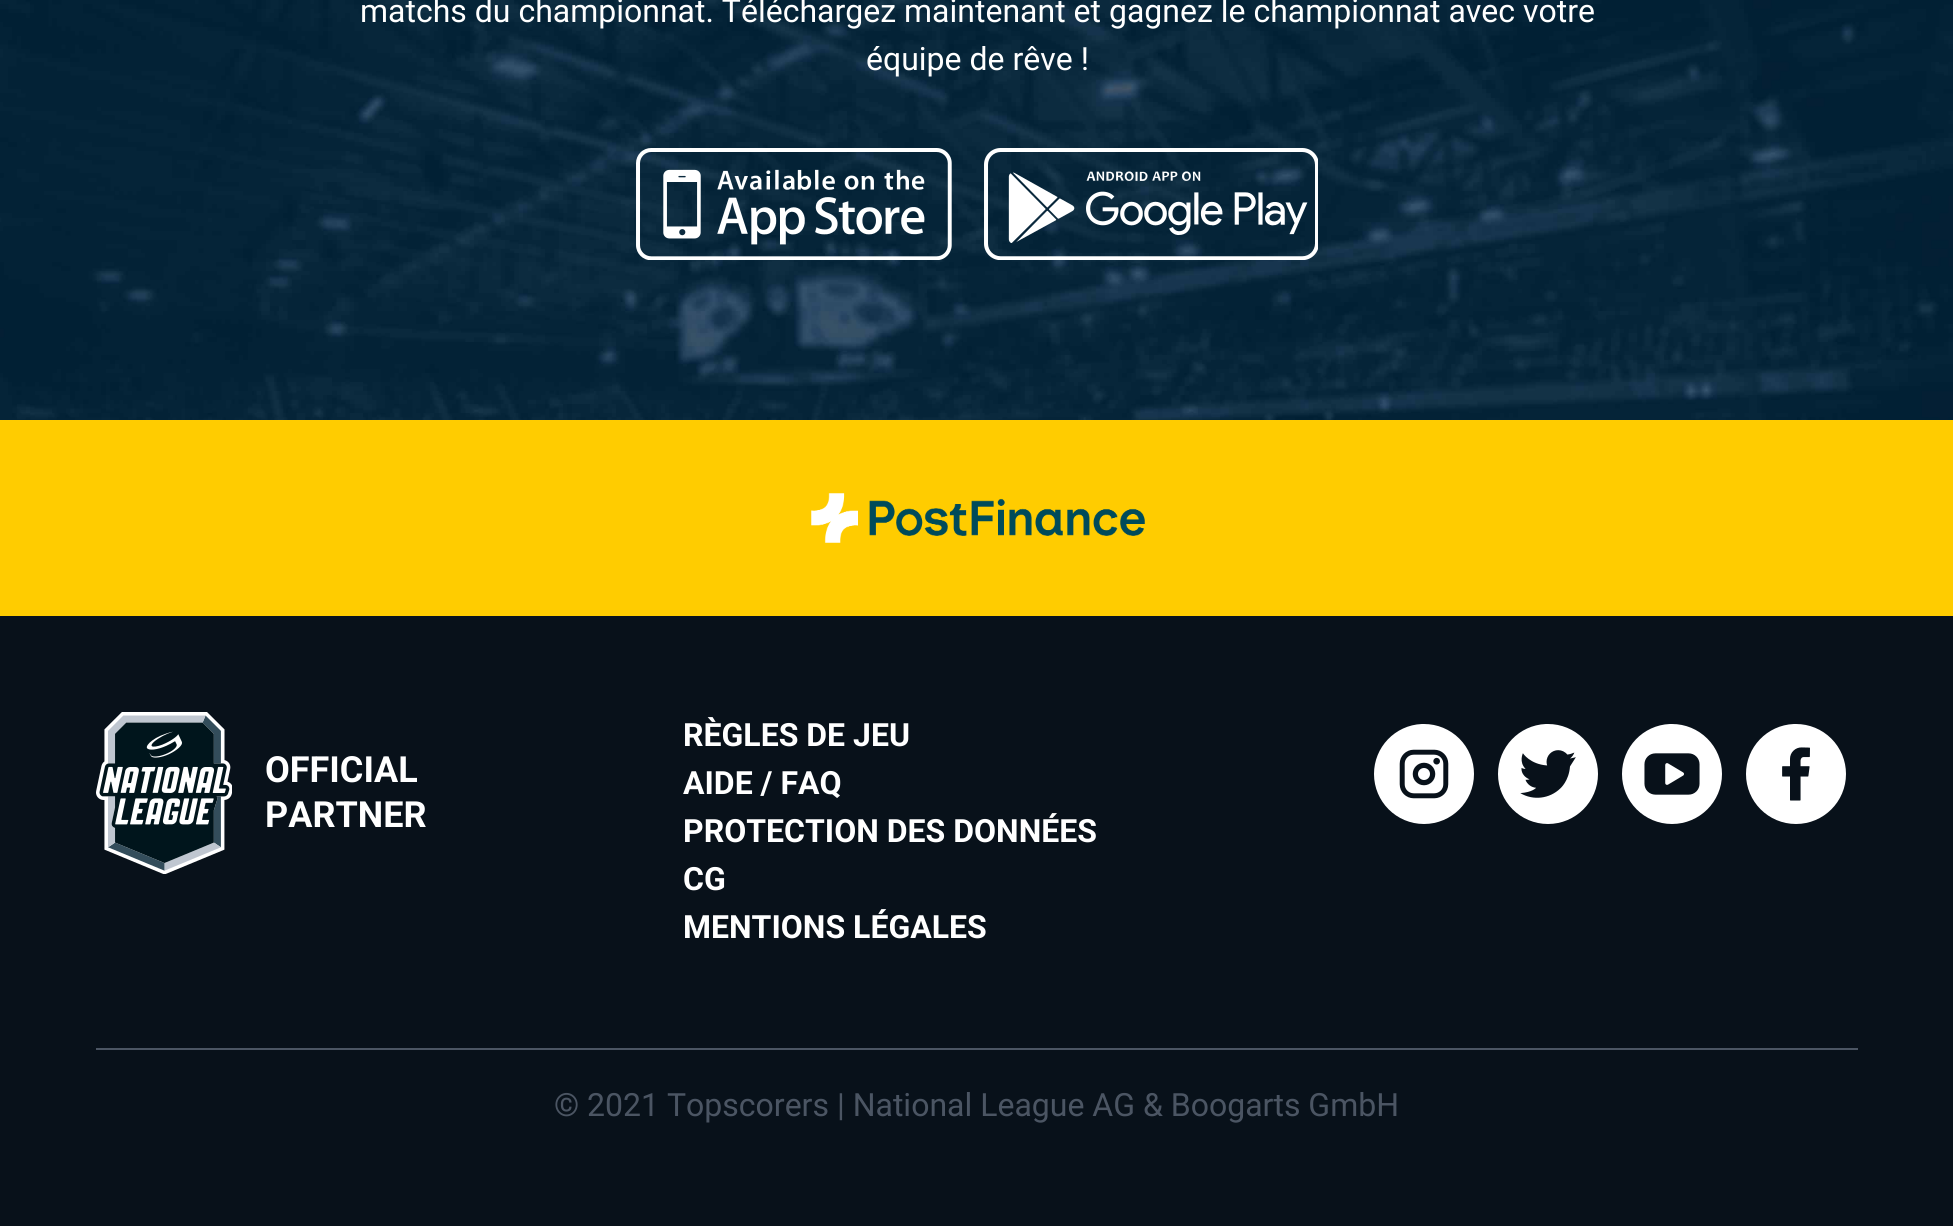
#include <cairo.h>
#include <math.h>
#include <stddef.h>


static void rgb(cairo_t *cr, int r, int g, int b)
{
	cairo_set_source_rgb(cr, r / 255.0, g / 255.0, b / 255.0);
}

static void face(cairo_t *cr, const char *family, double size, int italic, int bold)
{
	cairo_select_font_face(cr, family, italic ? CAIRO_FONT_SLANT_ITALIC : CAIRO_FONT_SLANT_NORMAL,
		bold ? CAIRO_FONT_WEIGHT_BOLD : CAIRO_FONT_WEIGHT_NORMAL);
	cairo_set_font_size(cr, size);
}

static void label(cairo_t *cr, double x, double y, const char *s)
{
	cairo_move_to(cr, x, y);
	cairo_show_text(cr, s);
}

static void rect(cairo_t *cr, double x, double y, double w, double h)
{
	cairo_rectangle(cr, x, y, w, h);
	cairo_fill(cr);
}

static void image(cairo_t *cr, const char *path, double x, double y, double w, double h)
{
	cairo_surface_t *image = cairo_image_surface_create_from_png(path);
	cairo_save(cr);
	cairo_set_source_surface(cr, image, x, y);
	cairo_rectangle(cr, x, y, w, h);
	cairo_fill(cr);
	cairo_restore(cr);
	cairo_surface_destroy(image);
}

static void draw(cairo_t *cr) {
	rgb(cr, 255, 255, 255);
	cairo_paint(cr);
	image(cr, "image0.png", 0, 0, 1953, 420);
	face(cr, "Roboto", 32, 0, 0);
	rgb(cr, 255, 255, 255);
	label(cr, 360, 22, "matchs du championnat. Téléchargez maintenant et gagnez le championnat avec votre");
	label(cr, 866, 70, "équipe de rêve !");
	image(cr, "image1.png", 636, 148, 316, 112);
	image(cr, "image2.png", 984, 148, 334, 112);
	rgb(cr, 255, 204, 0);
	rect(cr, 0, 420, 1953, 196);
	image(cr, "image3.png", 811, 493, 334, 50);
	rgb(cr, 8, 17, 26);
	rect(cr, 0, 616, 1953, 610);
	image(cr, "image4.png", 96, 712, 136, 162);
	face(cr, "Roboto", 36, 0, 1);
	rgb(cr, 255, 255, 255);
	label(cr, 265, 782, "OFFICIAL");
	label(cr, 265, 827, "PARTNER");
	face(cr, "Roboto", 32, 0, 1);
	label(cr, 683, 746, "RÈGLES DE JEU");
	label(cr, 683, 794, "AIDE / FAQ");
	label(cr, 683, 842, "PROTECTION DES DONNÉES");
	label(cr, 683, 890, "CG");
	label(cr, 683, 938, "MENTIONS LÉGALES");
	image(cr, "image5.png", 1374, 724, 100, 100);
	image(cr, "image6.png", 1498, 724, 100, 100);
	image(cr, "image7.png", 1622, 724, 100, 100);
	image(cr, "image8.png", 1746, 724, 100, 100);
	rgb(cr, 75, 85, 99);
	rect(cr, 96, 1048, 1762, 2);
	face(cr, "Roboto", 32, 0, 0);
	label(cr, 554, 1116, "© 2021 Topscorers | National League AG & Boogarts GmbH");
}

int main(void) {
	cairo_surface_t *surface = cairo_image_surface_create(CAIRO_FORMAT_RGB24, 1953, 1226);
	cairo_t *cr = cairo_create(surface);
	cairo_font_options_t *options = cairo_font_options_create();
	cairo_font_options_set_hint_metrics(options, CAIRO_HINT_METRICS_OFF);
	cairo_font_options_set_hint_style(options, CAIRO_HINT_STYLE_NONE);
	cairo_set_font_options(cr, options);
	cairo_set_miter_limit(cr, 4);
	draw(cr);
	cairo_surface_write_to_png(surface, "render.png");
	cairo_font_options_destroy(options);
	cairo_destroy(cr);
	cairo_surface_destroy(surface);
	return 0;
}
